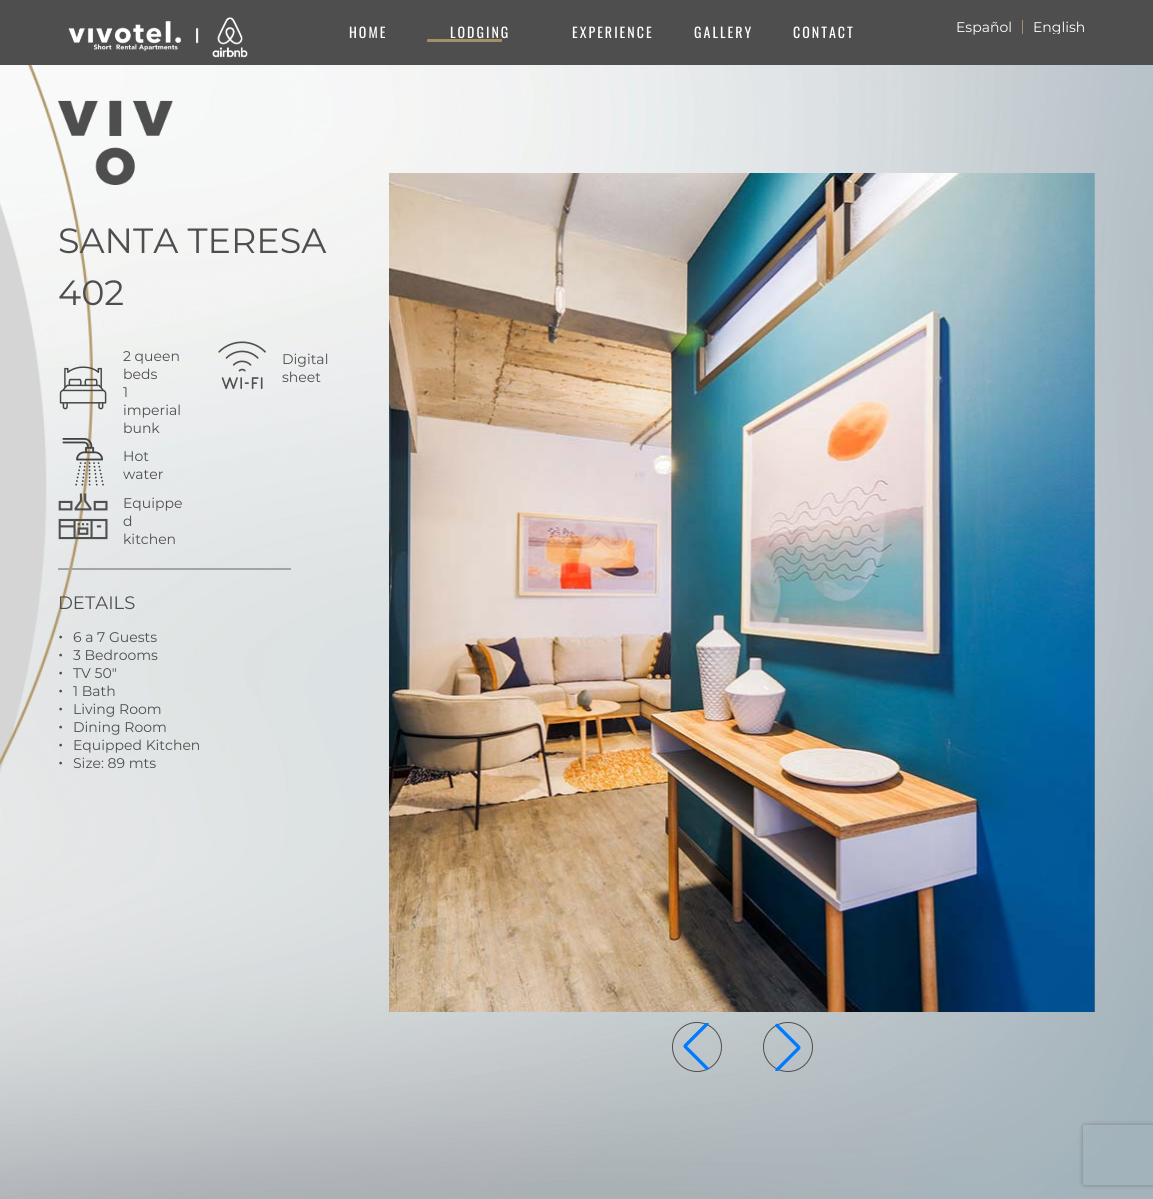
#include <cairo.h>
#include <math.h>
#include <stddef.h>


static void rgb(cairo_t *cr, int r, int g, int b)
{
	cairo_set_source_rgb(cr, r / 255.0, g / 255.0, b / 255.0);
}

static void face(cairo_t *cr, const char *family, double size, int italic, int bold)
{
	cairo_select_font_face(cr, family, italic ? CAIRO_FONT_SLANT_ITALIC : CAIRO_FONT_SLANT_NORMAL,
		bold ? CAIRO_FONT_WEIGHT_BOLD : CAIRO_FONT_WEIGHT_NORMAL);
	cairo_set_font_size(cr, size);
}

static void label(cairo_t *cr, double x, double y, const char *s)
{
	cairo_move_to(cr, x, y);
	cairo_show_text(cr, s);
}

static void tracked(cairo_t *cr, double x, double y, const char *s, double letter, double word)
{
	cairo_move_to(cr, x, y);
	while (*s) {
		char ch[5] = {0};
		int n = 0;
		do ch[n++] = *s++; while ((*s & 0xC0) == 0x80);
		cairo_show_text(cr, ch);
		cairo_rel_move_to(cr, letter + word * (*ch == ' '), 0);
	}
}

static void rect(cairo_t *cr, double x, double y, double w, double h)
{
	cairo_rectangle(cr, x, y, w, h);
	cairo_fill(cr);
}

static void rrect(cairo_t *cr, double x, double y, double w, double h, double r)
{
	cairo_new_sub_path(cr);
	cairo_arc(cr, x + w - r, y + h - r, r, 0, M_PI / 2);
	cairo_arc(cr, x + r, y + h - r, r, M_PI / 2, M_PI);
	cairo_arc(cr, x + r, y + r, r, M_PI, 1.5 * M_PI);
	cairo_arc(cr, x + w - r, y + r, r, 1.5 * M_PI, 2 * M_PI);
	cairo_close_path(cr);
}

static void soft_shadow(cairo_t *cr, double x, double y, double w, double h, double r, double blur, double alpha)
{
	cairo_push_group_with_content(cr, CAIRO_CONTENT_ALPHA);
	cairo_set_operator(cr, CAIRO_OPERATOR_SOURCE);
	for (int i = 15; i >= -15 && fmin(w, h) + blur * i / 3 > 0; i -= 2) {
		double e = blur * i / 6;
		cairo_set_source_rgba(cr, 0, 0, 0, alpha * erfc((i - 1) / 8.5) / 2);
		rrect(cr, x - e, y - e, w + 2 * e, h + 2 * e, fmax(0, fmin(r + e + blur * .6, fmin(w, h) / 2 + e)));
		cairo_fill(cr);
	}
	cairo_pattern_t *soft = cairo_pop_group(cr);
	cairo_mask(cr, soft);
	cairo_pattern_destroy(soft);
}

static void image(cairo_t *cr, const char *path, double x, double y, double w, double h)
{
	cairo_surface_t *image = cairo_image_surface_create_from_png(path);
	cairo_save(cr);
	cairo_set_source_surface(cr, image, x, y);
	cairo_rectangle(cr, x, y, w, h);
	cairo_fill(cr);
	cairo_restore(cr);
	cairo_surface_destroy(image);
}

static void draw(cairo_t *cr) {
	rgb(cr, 255, 255, 255);
	cairo_paint(cr);
	rgb(cr, 78, 78, 78);
	rect(cr, 0, 0, 1153, 65);
	image(cr, "image0.png", 68, 17, 180, 41);
	face(cr, "Oswald", 14, 0, 0);
	rgb(cr, 255, 255, 255);
	tracked(cr, 349, 38, "HOME", 2, 0);
	tracked(cr, 450, 38, "LODGING", 2, 0);
	rgb(cr, 163, 145, 102);
	rrect(cr, 427, 39, 75, 3, 1);
	cairo_fill(cr);
	rgb(cr, 255, 255, 255);
	tracked(cr, 572, 38, "EXPERIENCE", 2, 0);
	tracked(cr, 694, 38, "GALLERY", 2, 0);
	tracked(cr, 793, 38, "CONTACT", 2, 0);
	rgb(cr, 163, 145, 102);
	rect(cr, 1022, 20, 1, 14);
	face(cr, "Montserrat Thin", 14, 0, 0);
	rgb(cr, 255, 255, 255);
	label(cr, 956, 32, "Español");
	cairo_save(cr);
	cairo_rectangle(cr, 1023, 20, 72, 14);
	cairo_clip(cr);
	label(cr, 1033, 32, "English");
	cairo_restore(cr);
	image(cr, "image1.png", 0, 65, 1153, 1134);
	image(cr, "image2.png", 58, 100, 115, 85);
	face(cr, "Montserrat Thin", 35, 0, 0);
	rgb(cr, 78, 78, 78);
	label(cr, 58, 253, "SANTA TERESA");
	label(cr, 58, 305, "402");
	image(cr, "image3.png", 59, 366, 48, 44);
	face(cr, "Montserrat Thin", 14, 0, 0);
	label(cr, 123, 361, "2 queen");
	label(cr, 123, 379, "beds");
	label(cr, 123, 397, "1");
	label(cr, 123, 415, "imperial");
	label(cr, 123, 433, "bunk");
	image(cr, "image4.png", 62, 438, 42, 48);
	label(cr, 123, 461, "Hot");
	label(cr, 123, 479, "water");
	image(cr, "image5.png", 58, 493, 50, 47);
	label(cr, 123, 508, "Equippe");
	label(cr, 123, 526, "d");
	label(cr, 123, 544, "kitchen");
	image(cr, "image6.png", 218, 341, 48, 49);
	label(cr, 282, 364, "Digital");
	label(cr, 282, 382, "sheet");
	rgb(cr, 164, 164, 164);
	rect(cr, 58, 568, 233, 2);
	face(cr, "Montserrat Thin", 18, 0, 0);
	rgb(cr, 78, 78, 78);
	label(cr, 58, 609, "DETAILS");
	label(cr, 58, 642, "•");
	face(cr, "Montserrat Thin", 14, 0, 0);
	label(cr, 73, 642, "6 a 7 Guests");
	face(cr, "Montserrat Thin", 18, 0, 0);
	label(cr, 58, 660, "•");
	face(cr, "Montserrat Thin", 14, 0, 0);
	label(cr, 73, 660, "3 Bedrooms");
	face(cr, "Montserrat Thin", 18, 0, 0);
	label(cr, 58, 678, "•");
	face(cr, "Montserrat Thin", 14, 0, 0);
	label(cr, 73, 678, "TV 50″");
	face(cr, "Montserrat Thin", 18, 0, 0);
	label(cr, 58, 696, "•");
	face(cr, "Montserrat Thin", 14, 0, 0);
	label(cr, 73, 696, "1 Bath");
	face(cr, "Montserrat Thin", 18, 0, 0);
	label(cr, 58, 714, "•");
	face(cr, "Montserrat Thin", 14, 0, 0);
	label(cr, 73, 714, "Living Room");
	face(cr, "Montserrat Thin", 18, 0, 0);
	label(cr, 58, 732, "•");
	face(cr, "Montserrat Thin", 14, 0, 0);
	label(cr, 73, 732, "Dining Room");
	face(cr, "Montserrat Thin", 18, 0, 0);
	label(cr, 58, 750, "•");
	face(cr, "Montserrat Thin", 14, 0, 0);
	label(cr, 73, 750, "Equipped Kitchen");
	face(cr, "Montserrat Thin", 18, 0, 0);
	label(cr, 58, 768, "•");
	face(cr, "Montserrat Thin", 14, 0, 0);
	label(cr, 73, 768, "Size: 89 mts");
	image(cr, "image7.png", 389, 173, 706, 839);
	cairo_arc(cr, 697, 1047, 24.5, 0, 2 * M_PI);
	cairo_set_line_width(cr, 1);
	cairo_stroke(cr);
	image(cr, "image8.png", 683, 1023, 26, 48);
	cairo_arc(cr, 788, 1047, 24.5, 0, 2 * M_PI);
	cairo_stroke(cr);
	image(cr, "image9.png", 775, 1023, 26, 48);
	cairo_save(cr);
	cairo_set_fill_rule(cr, CAIRO_FILL_RULE_EVEN_ODD);
	cairo_new_path(cr);
	cairo_move_to(cr, 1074, 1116);
	cairo_line_to(cr, 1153, 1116);
	cairo_line_to(cr, 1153, 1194);
	cairo_line_to(cr, 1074, 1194);
	cairo_close_path(cr);
	cairo_move_to(cr, 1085, 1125);
	cairo_line_to(cr, 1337, 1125);
	cairo_curve_to(cr, 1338, 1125, 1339, 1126, 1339, 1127);
	cairo_line_to(cr, 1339, 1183);
	cairo_curve_to(cr, 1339, 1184, 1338, 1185, 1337, 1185);
	cairo_line_to(cr, 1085, 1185);
	cairo_curve_to(cr, 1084, 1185, 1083, 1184, 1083, 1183);
	cairo_line_to(cr, 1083, 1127);
	cairo_curve_to(cr, 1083, 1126, 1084, 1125, 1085, 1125);
	cairo_close_path(cr);
	cairo_clip(cr);
	rgb(cr, 128, 128, 128);
	soft_shadow(cr, 1083, 1125, 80, 60, 2, 2.5, 1);
	cairo_restore(cr);
}

int main(void) {
	cairo_surface_t *surface = cairo_image_surface_create(CAIRO_FORMAT_RGB24, 1153, 1199);
	cairo_t *cr = cairo_create(surface);
	cairo_font_options_t *options = cairo_font_options_create();
	cairo_font_options_set_hint_metrics(options, CAIRO_HINT_METRICS_OFF);
	cairo_font_options_set_hint_style(options, CAIRO_HINT_STYLE_NONE);
	cairo_set_font_options(cr, options);
	cairo_set_miter_limit(cr, 4);
	draw(cr);
	cairo_surface_write_to_png(surface, "render.png");
	cairo_font_options_destroy(options);
	cairo_destroy(cr);
	cairo_surface_destroy(surface);
	return 0;
}
